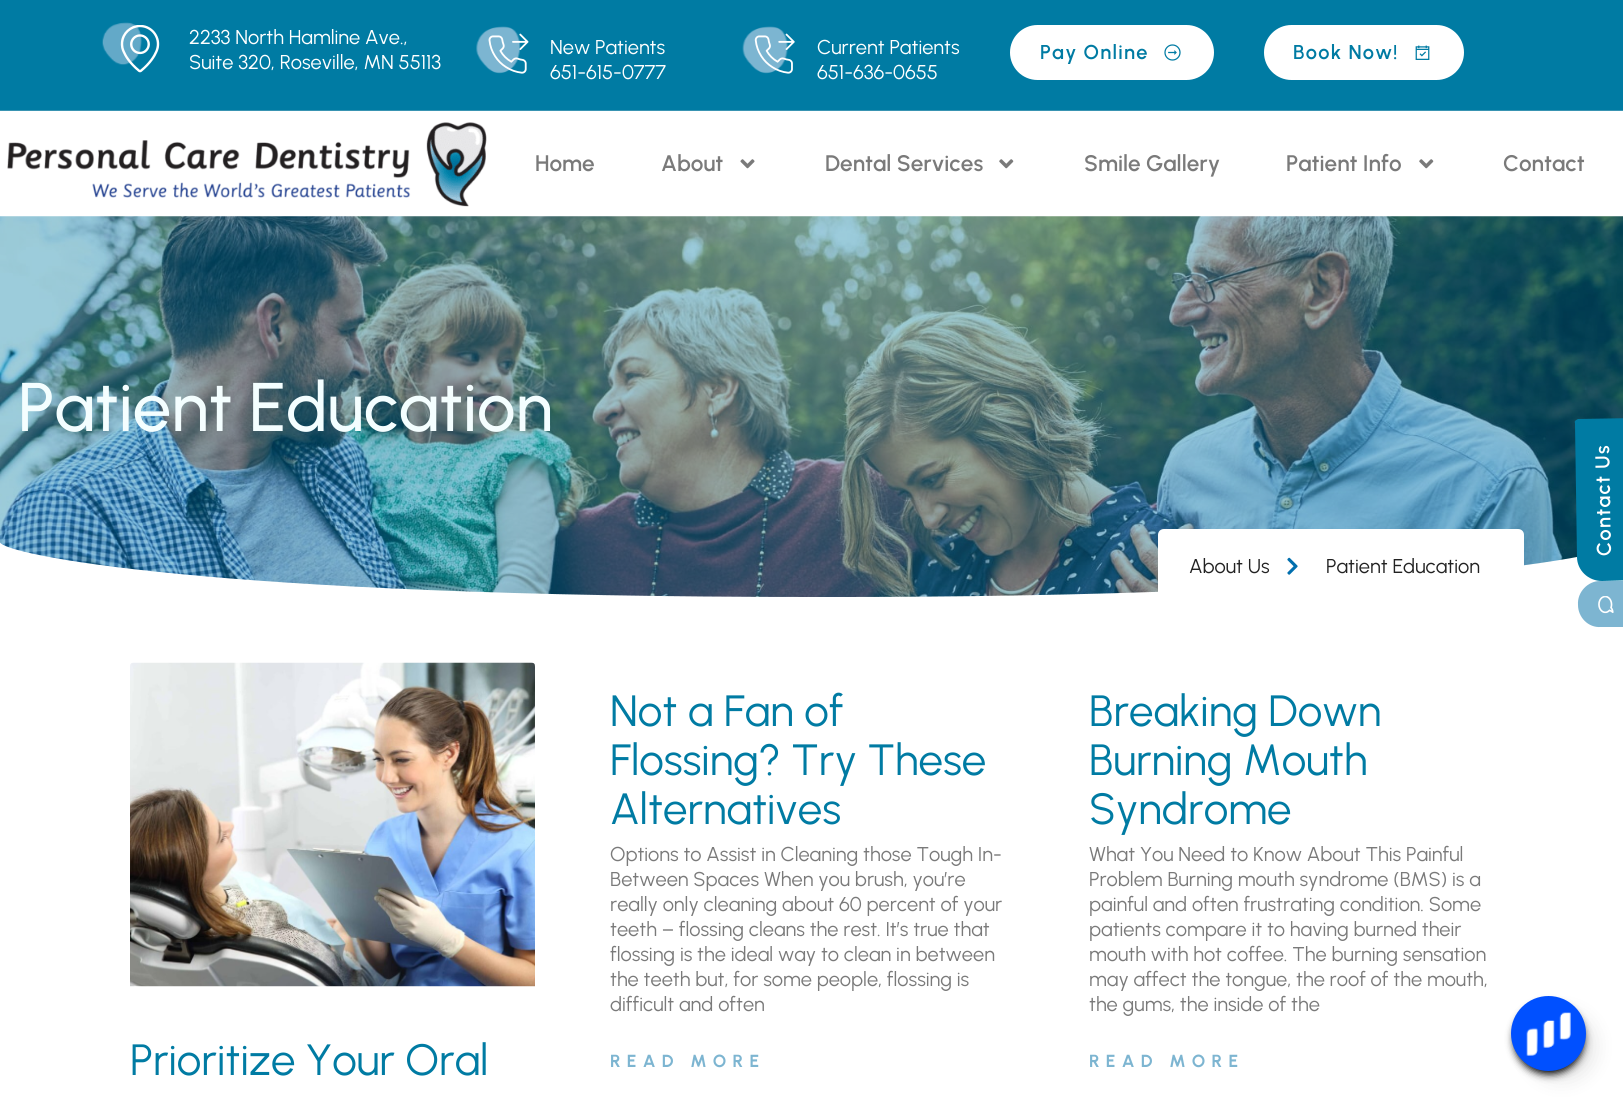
#include <cairo.h>
#include <math.h>
#include <stddef.h>


static void rgb(cairo_t *cr, int r, int g, int b)
{
	cairo_set_source_rgb(cr, r / 255.0, g / 255.0, b / 255.0);
}

static void face(cairo_t *cr, const char *family, double size, int italic, int bold)
{
	cairo_select_font_face(cr, family, italic ? CAIRO_FONT_SLANT_ITALIC : CAIRO_FONT_SLANT_NORMAL,
		bold ? CAIRO_FONT_WEIGHT_BOLD : CAIRO_FONT_WEIGHT_NORMAL);
	cairo_set_font_size(cr, size);
}

static void label(cairo_t *cr, double x, double y, const char *s)
{
	cairo_move_to(cr, x, y);
	cairo_show_text(cr, s);
}

static void tracked(cairo_t *cr, double x, double y, const char *s, double letter, double word)
{
	cairo_move_to(cr, x, y);
	while (*s) {
		char ch[5] = {0};
		int n = 0;
		do ch[n++] = *s++; while ((*s & 0xC0) == 0x80);
		cairo_show_text(cr, ch);
		cairo_rel_move_to(cr, letter + word * (*ch == ' '), 0);
	}
}

static void rect(cairo_t *cr, double x, double y, double w, double h)
{
	cairo_rectangle(cr, x, y, w, h);
	cairo_fill(cr);
}

static void rrect(cairo_t *cr, double x, double y, double w, double h, double r)
{
	cairo_new_sub_path(cr);
	cairo_arc(cr, x + w - r, y + h - r, r, 0, M_PI / 2);
	cairo_arc(cr, x + r, y + h - r, r, M_PI / 2, M_PI);
	cairo_arc(cr, x + r, y + r, r, M_PI, 1.5 * M_PI);
	cairo_arc(cr, x + w - r, y + r, r, 1.5 * M_PI, 2 * M_PI);
	cairo_close_path(cr);
}

static void soft_shadow(cairo_t *cr, double x, double y, double w, double h, double r, double blur, double alpha)
{
	cairo_push_group_with_content(cr, CAIRO_CONTENT_ALPHA);
	cairo_set_operator(cr, CAIRO_OPERATOR_SOURCE);
	for (int i = 15; i >= -15 && fmin(w, h) + blur * i / 3 > 0; i -= 2) {
		double e = blur * i / 6;
		cairo_set_source_rgba(cr, 0, 0, 0, alpha * erfc((i - 1) / 8.5) / 2);
		rrect(cr, x - e, y - e, w + 2 * e, h + 2 * e, fmax(0, fmin(r + e + blur * .6, fmin(w, h) / 2 + e)));
		cairo_fill(cr);
	}
	cairo_pattern_t *soft = cairo_pop_group(cr);
	cairo_mask(cr, soft);
	cairo_pattern_destroy(soft);
}

static void image(cairo_t *cr, const char *path, double x, double y, double w, double h)
{
	cairo_surface_t *image = cairo_image_surface_create_from_png(path);
	cairo_save(cr);
	cairo_set_source_surface(cr, image, x, y);
	cairo_rectangle(cr, x, y, w, h);
	cairo_fill(cr);
	cairo_restore(cr);
	cairo_surface_destroy(image);
}

static void draw(cairo_t *cr) {
	rgb(cr, 255, 255, 255);
	cairo_paint(cr);
	rgb(cr, 0, 123, 163);
	rect(cr, 0, 0, 1623, 110);
	rgb(cr, 57, 148, 178);
	rect(cr, 0, 110, 1623, 1);
	image(cr, "image0.png", 102, 22, 40, 43);
	image(cr, "image1.png", 120, 25, 40, 48);
	face(cr, "Urbanist", 20, 0, 0);
	rgb(cr, 255, 255, 255);
	label(cr, 189, 44, "2233 North Hamline Ave.,");
	label(cr, 189, 69, "Suite 320, Roseville, MN 55113");
	image(cr, "image2.png", 476, 26, 45, 48);
	image(cr, "image3.png", 488, 33, 41, 41);
	label(cr, 550, 54, "New Patients");
	label(cr, 550, 79, "651-615-0777");
	image(cr, "image4.png", 742, 26, 46, 48);
	image(cr, "image5.png", 754, 33, 41, 41);
	label(cr, 817, 54, "Current Patients");
	label(cr, 817, 79, "651-636-0655");
	rrect(cr, 1010, 25, 204, 55, 27.5);
	cairo_fill(cr);
	face(cr, "Urbanist SemiBold", 20, 0, 0);
	rgb(cr, 0, 123, 163);
	tracked(cr, 1040, 59, "Pay Online", 1.25, 0);
	image(cr, "image6.png", 1164, 44, 17, 17);
	rgb(cr, 255, 255, 255);
	rrect(cr, 1264, 25, 200, 55, 27.5);
	cairo_fill(cr);
	rgb(cr, 0, 123, 163);
	tracked(cr, 1293, 59, "Book Now!", 1.25, 0);
	image(cr, "image7.png", 1415, 45, 15, 15);
	image(cr, "image8.png", 7, 122, 480, 85);
	face(cr, "Urbanist SemiBold", 22.5, 0, 0);
	rgb(cr, 122, 122, 122);
	label(cr, 535, 171, "Home");
	label(cr, 661, 171, "About");
	image(cr, "image9.png", 740, 159, 15, 10);
	label(cr, 825, 171, "Dental Services");
	image(cr, "image10.png", 999, 159, 15, 10);
	label(cr, 1084, 171, "Smile Gallery");
	label(cr, 1286, 171, "Patient Info");
	image(cr, "image10.png", 1419, 159, 15, 10);
	label(cr, 1503, 171, "Contact");
	image(cr, "image12.png", 0, 216, 1623, 381);
	rgb(cr, 255, 255, 255);
	cairo_new_path(cr);
	cairo_move_to(cr, 813, 597);
	cairo_curve_to(cr, 206, 597, 1, 554, 0, 542);
	cairo_line_to(cr, 0, 599);
	cairo_line_to(cr, 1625, 599);
	cairo_line_to(cr, 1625, 543);
	cairo_curve_to(cr, 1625, 553, 1419, 598, 813, 597);
	cairo_close_path(cr);
	cairo_fill(cr);
	rgb(cr, 0, 123, 163);
	cairo_new_path(cr);
	cairo_move_to(cr, 1577, 557);
	cairo_line_to(cr, 1575, 423);
	cairo_curve_to(cr, 1574, 421, 1576, 420, 1578, 419);
	cairo_line_to(cr, 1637, 418);
	cairo_line_to(cr, 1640, 580);
	cairo_line_to(cr, 1602, 581);
	cairo_curve_to(cr, 1588, 581, 1577, 570, 1577, 557);
	cairo_close_path(cr);
	cairo_fill(cr);
	face(cr, "Urbanist SemiBold", 20, 0, 0);
	rgb(cr, 255, 255, 255);
	cairo_save(cr);
	cairo_translate(cr, 1611, 556);
	cairo_rotate(cr, -91 * M_PI / 180);
	tracked(cr, 0, 0, "Contact Us", 1.25, 0);
	cairo_restore(cr);
	rgb(cr, 125, 181, 209);
	cairo_new_path(cr);
	cairo_move_to(cr, 1578, 605);
	cairo_curve_to(cr, 1577, 592, 1588, 581, 1600, 581);
	cairo_line_to(cr, 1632, 581);
	cairo_line_to(cr, 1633, 627);
	cairo_line_to(cr, 1601, 627);
	cairo_curve_to(cr, 1588, 628, 1578, 617, 1578, 605);
	cairo_close_path(cr);
	cairo_fill(cr);
	image(cr, "image11.png", 1598, 596, 16, 18);
	face(cr, "Urbanist Medium", 68.75, 0, 0);
	rgb(cr, 244, 254, 255);
	label(cr, 18, 431, "Patient Education");
	rgb(cr, 255, 255, 255);
	cairo_new_path(cr);
	cairo_move_to(cr, 1164, 529);
	cairo_line_to(cr, 1518, 529);
	cairo_curve_to(cr, 1521.5, 529, 1524, 531.5, 1524, 535);
	cairo_line_to(cr, 1524, 598);
	cairo_line_to(cr, 1158, 598);
	cairo_line_to(cr, 1158, 535);
	cairo_curve_to(cr, 1158, 531.5, 1160.5, 529, 1164, 529);
	cairo_close_path(cr);
	cairo_fill(cr);
	face(cr, "Urbanist", 20, 0, 0);
	rgb(cr, 34, 34, 34);
	label(cr, 1189, 573, "About Us");
	image(cr, "image13.png", 1287, 557, 11, 18);
	label(cr, 1326, 573, "Patient Education");
	image(cr, "image14.png", 130, 662, 405, 325);
	face(cr, "Urbanist", 43.75, 0, 0);
	rgb(cr, 0, 123, 163);
	label(cr, 130, 1075, "Prioritize Your Oral");
	label(cr, 610, 726, "Not a Fan of");
	label(cr, 610, 775, "Flossing? Try These");
	label(cr, 610, 824, "Alternatives");
	face(cr, "Urbanist", 20, 0, 0);
	rgb(cr, 122, 122, 122);
	label(cr, 610, 861, "Options to Assist in Cleaning those Tough In-");
	label(cr, 610, 886, "Between Spaces When you brush, you’re");
	label(cr, 610, 911, "really only cleaning about 60 percent of your");
	label(cr, 610, 936, "teeth – flossing cleans the rest. It’s true that");
	label(cr, 610, 961, "flossing is the ideal way to clean in between");
	label(cr, 610, 986, "the teeth but, for some people, flossing is");
	label(cr, 610, 1011, "difficult and often");
	face(cr, "Urbanist", 17.5, 0, 1);
	rgb(cr, 125, 181, 209);
	tracked(cr, 610, 1067, "READ MORE", 6.25, 0);
	face(cr, "Urbanist", 43.75, 0, 0);
	rgb(cr, 0, 123, 163);
	label(cr, 1089, 726, "Breaking Down");
	label(cr, 1089, 775, "Burning Mouth");
	label(cr, 1089, 824, "Syndrome");
	face(cr, "Urbanist", 20, 0, 0);
	rgb(cr, 122, 122, 122);
	label(cr, 1089, 861, "What You Need to Know About This Painful");
	label(cr, 1089, 886, "Problem Burning mouth syndrome (BMS) is a");
	label(cr, 1089, 911, "painful and often frustrating condition. Some");
	label(cr, 1089, 936, "patients compare it to having burned their");
	label(cr, 1089, 961, "mouth with hot coffee. The burning sensation");
	label(cr, 1089, 986, "may affect the tongue, the roof of the mouth,");
	label(cr, 1089, 1011, "the gums, the inside of the");
	face(cr, "Urbanist", 17.5, 0, 1);
	rgb(cr, 125, 181, 209);
	tracked(cr, 1089, 1067, "READ MORE", 6.25, 0);
	rgb(cr, 0, 0, 0);
	soft_shadow(cr, 1514, 1004, 70, 70, 35, 4, 1);
	soft_shadow(cr, 1528, 1013, 67, 67, 33.5, 9.5, 0.1);
	rgb(cr, 0, 80, 255);
	cairo_arc(cr, 1548.5, 1033.5, 37.5, 0, 2 * M_PI);
	cairo_fill(cr);
	image(cr, "image15.png", 1526, 1012, 45, 44);
}

int main(void) {
	cairo_surface_t *surface = cairo_image_surface_create(CAIRO_FORMAT_RGB24, 1623, 1108);
	cairo_t *cr = cairo_create(surface);
	cairo_font_options_t *options = cairo_font_options_create();
	cairo_font_options_set_hint_metrics(options, CAIRO_HINT_METRICS_OFF);
	cairo_font_options_set_hint_style(options, CAIRO_HINT_STYLE_NONE);
	cairo_set_font_options(cr, options);
	cairo_set_miter_limit(cr, 4);
	draw(cr);
	cairo_surface_write_to_png(surface, "render.png");
	cairo_font_options_destroy(options);
	cairo_destroy(cr);
	cairo_surface_destroy(surface);
	return 0;
}
